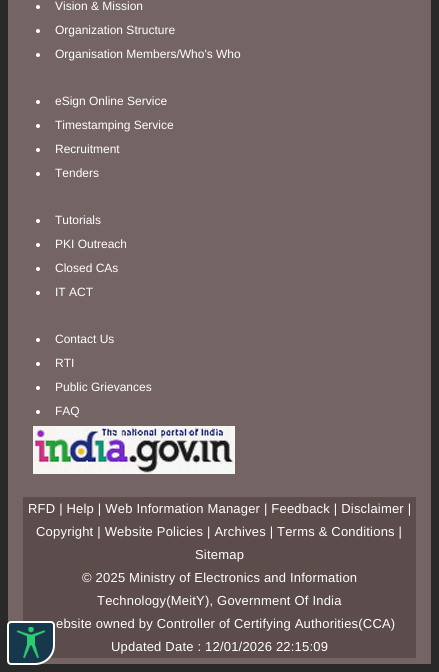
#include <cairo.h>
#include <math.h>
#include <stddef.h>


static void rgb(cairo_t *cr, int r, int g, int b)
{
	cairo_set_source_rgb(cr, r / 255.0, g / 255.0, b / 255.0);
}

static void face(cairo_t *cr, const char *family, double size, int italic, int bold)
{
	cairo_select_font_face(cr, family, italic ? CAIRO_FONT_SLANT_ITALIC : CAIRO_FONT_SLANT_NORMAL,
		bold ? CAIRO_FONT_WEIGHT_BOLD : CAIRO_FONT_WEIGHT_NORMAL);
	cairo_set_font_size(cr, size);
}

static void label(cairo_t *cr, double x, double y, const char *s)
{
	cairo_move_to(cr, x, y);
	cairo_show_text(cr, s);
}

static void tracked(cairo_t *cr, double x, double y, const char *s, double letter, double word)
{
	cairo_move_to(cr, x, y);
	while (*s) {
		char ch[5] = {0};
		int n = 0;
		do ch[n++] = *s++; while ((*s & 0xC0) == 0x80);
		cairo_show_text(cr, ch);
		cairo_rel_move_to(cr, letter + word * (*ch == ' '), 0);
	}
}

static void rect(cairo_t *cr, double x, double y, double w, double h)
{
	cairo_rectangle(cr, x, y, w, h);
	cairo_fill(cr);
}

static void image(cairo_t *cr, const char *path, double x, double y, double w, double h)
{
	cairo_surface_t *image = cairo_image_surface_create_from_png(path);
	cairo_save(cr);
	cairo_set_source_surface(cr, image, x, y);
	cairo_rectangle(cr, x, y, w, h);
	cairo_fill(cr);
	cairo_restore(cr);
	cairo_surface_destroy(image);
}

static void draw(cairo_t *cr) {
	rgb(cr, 41, 41, 41);
	cairo_paint(cr);
	rgb(cr, 117, 100, 100);
	rect(cr, 8, 0, 423, 664);
	rgb(cr, 255, 255, 255);
	cairo_arc(cr, 38, 7, 2, 0, 2 * M_PI);
	cairo_fill(cr);
	face(cr, "Liberation Sans", 12, 0, 0);
	label(cr, 55, 10, "Vision & Mission");
	cairo_new_path(cr);
	cairo_arc(cr, 38, 31, 2, 0, 2 * M_PI);
	cairo_fill(cr);
	label(cr, 55, 34, "Organization Structure");
	cairo_new_path(cr);
	cairo_arc(cr, 38, 55, 2, 0, 2 * M_PI);
	cairo_fill(cr);
	label(cr, 55, 58, "Organisation Members/Who's Who");
	cairo_new_path(cr);
	cairo_arc(cr, 38, 102, 2, 0, 2 * M_PI);
	cairo_fill(cr);
	label(cr, 55, 105, "eSign Online Service");
	cairo_new_path(cr);
	cairo_arc(cr, 38, 126, 2, 0, 2 * M_PI);
	cairo_fill(cr);
	label(cr, 55, 129, "Timestamping Service");
	cairo_new_path(cr);
	cairo_arc(cr, 38, 150, 2, 0, 2 * M_PI);
	cairo_fill(cr);
	label(cr, 55, 153, "Recruitment");
	cairo_new_path(cr);
	cairo_arc(cr, 38, 174, 2, 0, 2 * M_PI);
	cairo_fill(cr);
	label(cr, 55, 177, "Tenders");
	cairo_new_path(cr);
	cairo_arc(cr, 38, 221, 2, 0, 2 * M_PI);
	cairo_fill(cr);
	label(cr, 55, 224, "Tutorials");
	cairo_new_path(cr);
	cairo_arc(cr, 38, 245, 2, 0, 2 * M_PI);
	cairo_fill(cr);
	label(cr, 55, 248, "PKI Outreach");
	cairo_new_path(cr);
	cairo_arc(cr, 38, 269, 2, 0, 2 * M_PI);
	cairo_fill(cr);
	label(cr, 55, 272, "Closed CAs");
	cairo_new_path(cr);
	cairo_arc(cr, 38, 293, 2, 0, 2 * M_PI);
	cairo_fill(cr);
	label(cr, 55, 296, "IT ACT");
	cairo_new_path(cr);
	cairo_arc(cr, 38, 340, 2, 0, 2 * M_PI);
	cairo_fill(cr);
	label(cr, 55, 343, "Contact Us");
	cairo_new_path(cr);
	cairo_arc(cr, 38, 364, 2, 0, 2 * M_PI);
	cairo_fill(cr);
	label(cr, 55, 367, "RTI");
	cairo_new_path(cr);
	cairo_arc(cr, 38, 388, 2, 0, 2 * M_PI);
	cairo_fill(cr);
	label(cr, 55, 391, "Public Grievances");
	cairo_new_path(cr);
	cairo_arc(cr, 38, 412, 2, 0, 2 * M_PI);
	cairo_fill(cr);
	label(cr, 55, 415, "FAQ");
	image(cr, "image0.png", 33, 426, 202, 48);
	rgb(cr, 93, 76, 76);
	rect(cr, 23, 497, 393, 161);
	face(cr, "Liberation Sans", 13, 0, 0);
	rgb(cr, 255, 255, 255);
	tracked(cr, 28, 513, "RFD | Help | Web Information Manager | Feedback | Disclaimer |", 0.2, 0);
	tracked(cr, 36, 536, "Copyright | Website Policies | Archives | Terms & Conditions |", 0.2, 0);
	tracked(cr, 195, 559, "Sitemap", 0.2, 0);
	tracked(cr, 82, 582, "© 2025 Ministry of Electronics and Information", 0.2, 0);
	tracked(cr, 97, 605, "Technology(MeitY), Government Of India", 0.2, 0);
	tracked(cr, 56, 628, "ebsite owned by Controller of Certifying Authorities(CCA)", 0.2, 0);
	tracked(cr, 111, 651, "Updated Date : 12/01/2026 22:15:09", 0.2, 0);
	rgb(cr, 23, 56, 76);
	cairo_new_path(cr);
	cairo_move_to(cr, 11, 622);
	cairo_line_to(cr, 51, 622);
	cairo_curve_to(cr, 52.5, 622, 54, 623.5, 54, 625);
	cairo_line_to(cr, 54, 645);
	cairo_curve_to(cr, 54, 655.5, 45.5, 664, 35, 664);
	cairo_line_to(cr, 11, 664);
	cairo_curve_to(cr, 9.5, 664, 8, 662.5, 8, 661);
	cairo_line_to(cr, 8, 625);
	cairo_curve_to(cr, 8, 623.5, 9.5, 622, 11, 622);
	cairo_close_path(cr);
	cairo_fill_preserve(cr);
	rgb(cr, 255, 255, 255);
	cairo_stroke(cr);
	image(cr, "image1.png", 16, 627, 30, 32);
}

int main(void) {
	cairo_surface_t *surface = cairo_image_surface_create(CAIRO_FORMAT_RGB24, 439, 672);
	cairo_t *cr = cairo_create(surface);
	cairo_font_options_t *options = cairo_font_options_create();
	cairo_font_options_set_hint_metrics(options, CAIRO_HINT_METRICS_OFF);
	cairo_font_options_set_hint_style(options, CAIRO_HINT_STYLE_NONE);
	cairo_set_font_options(cr, options);
	cairo_set_miter_limit(cr, 4);
	draw(cr);
	cairo_surface_write_to_png(surface, "render.png");
	cairo_font_options_destroy(options);
	cairo_destroy(cr);
	cairo_surface_destroy(surface);
	return 0;
}
